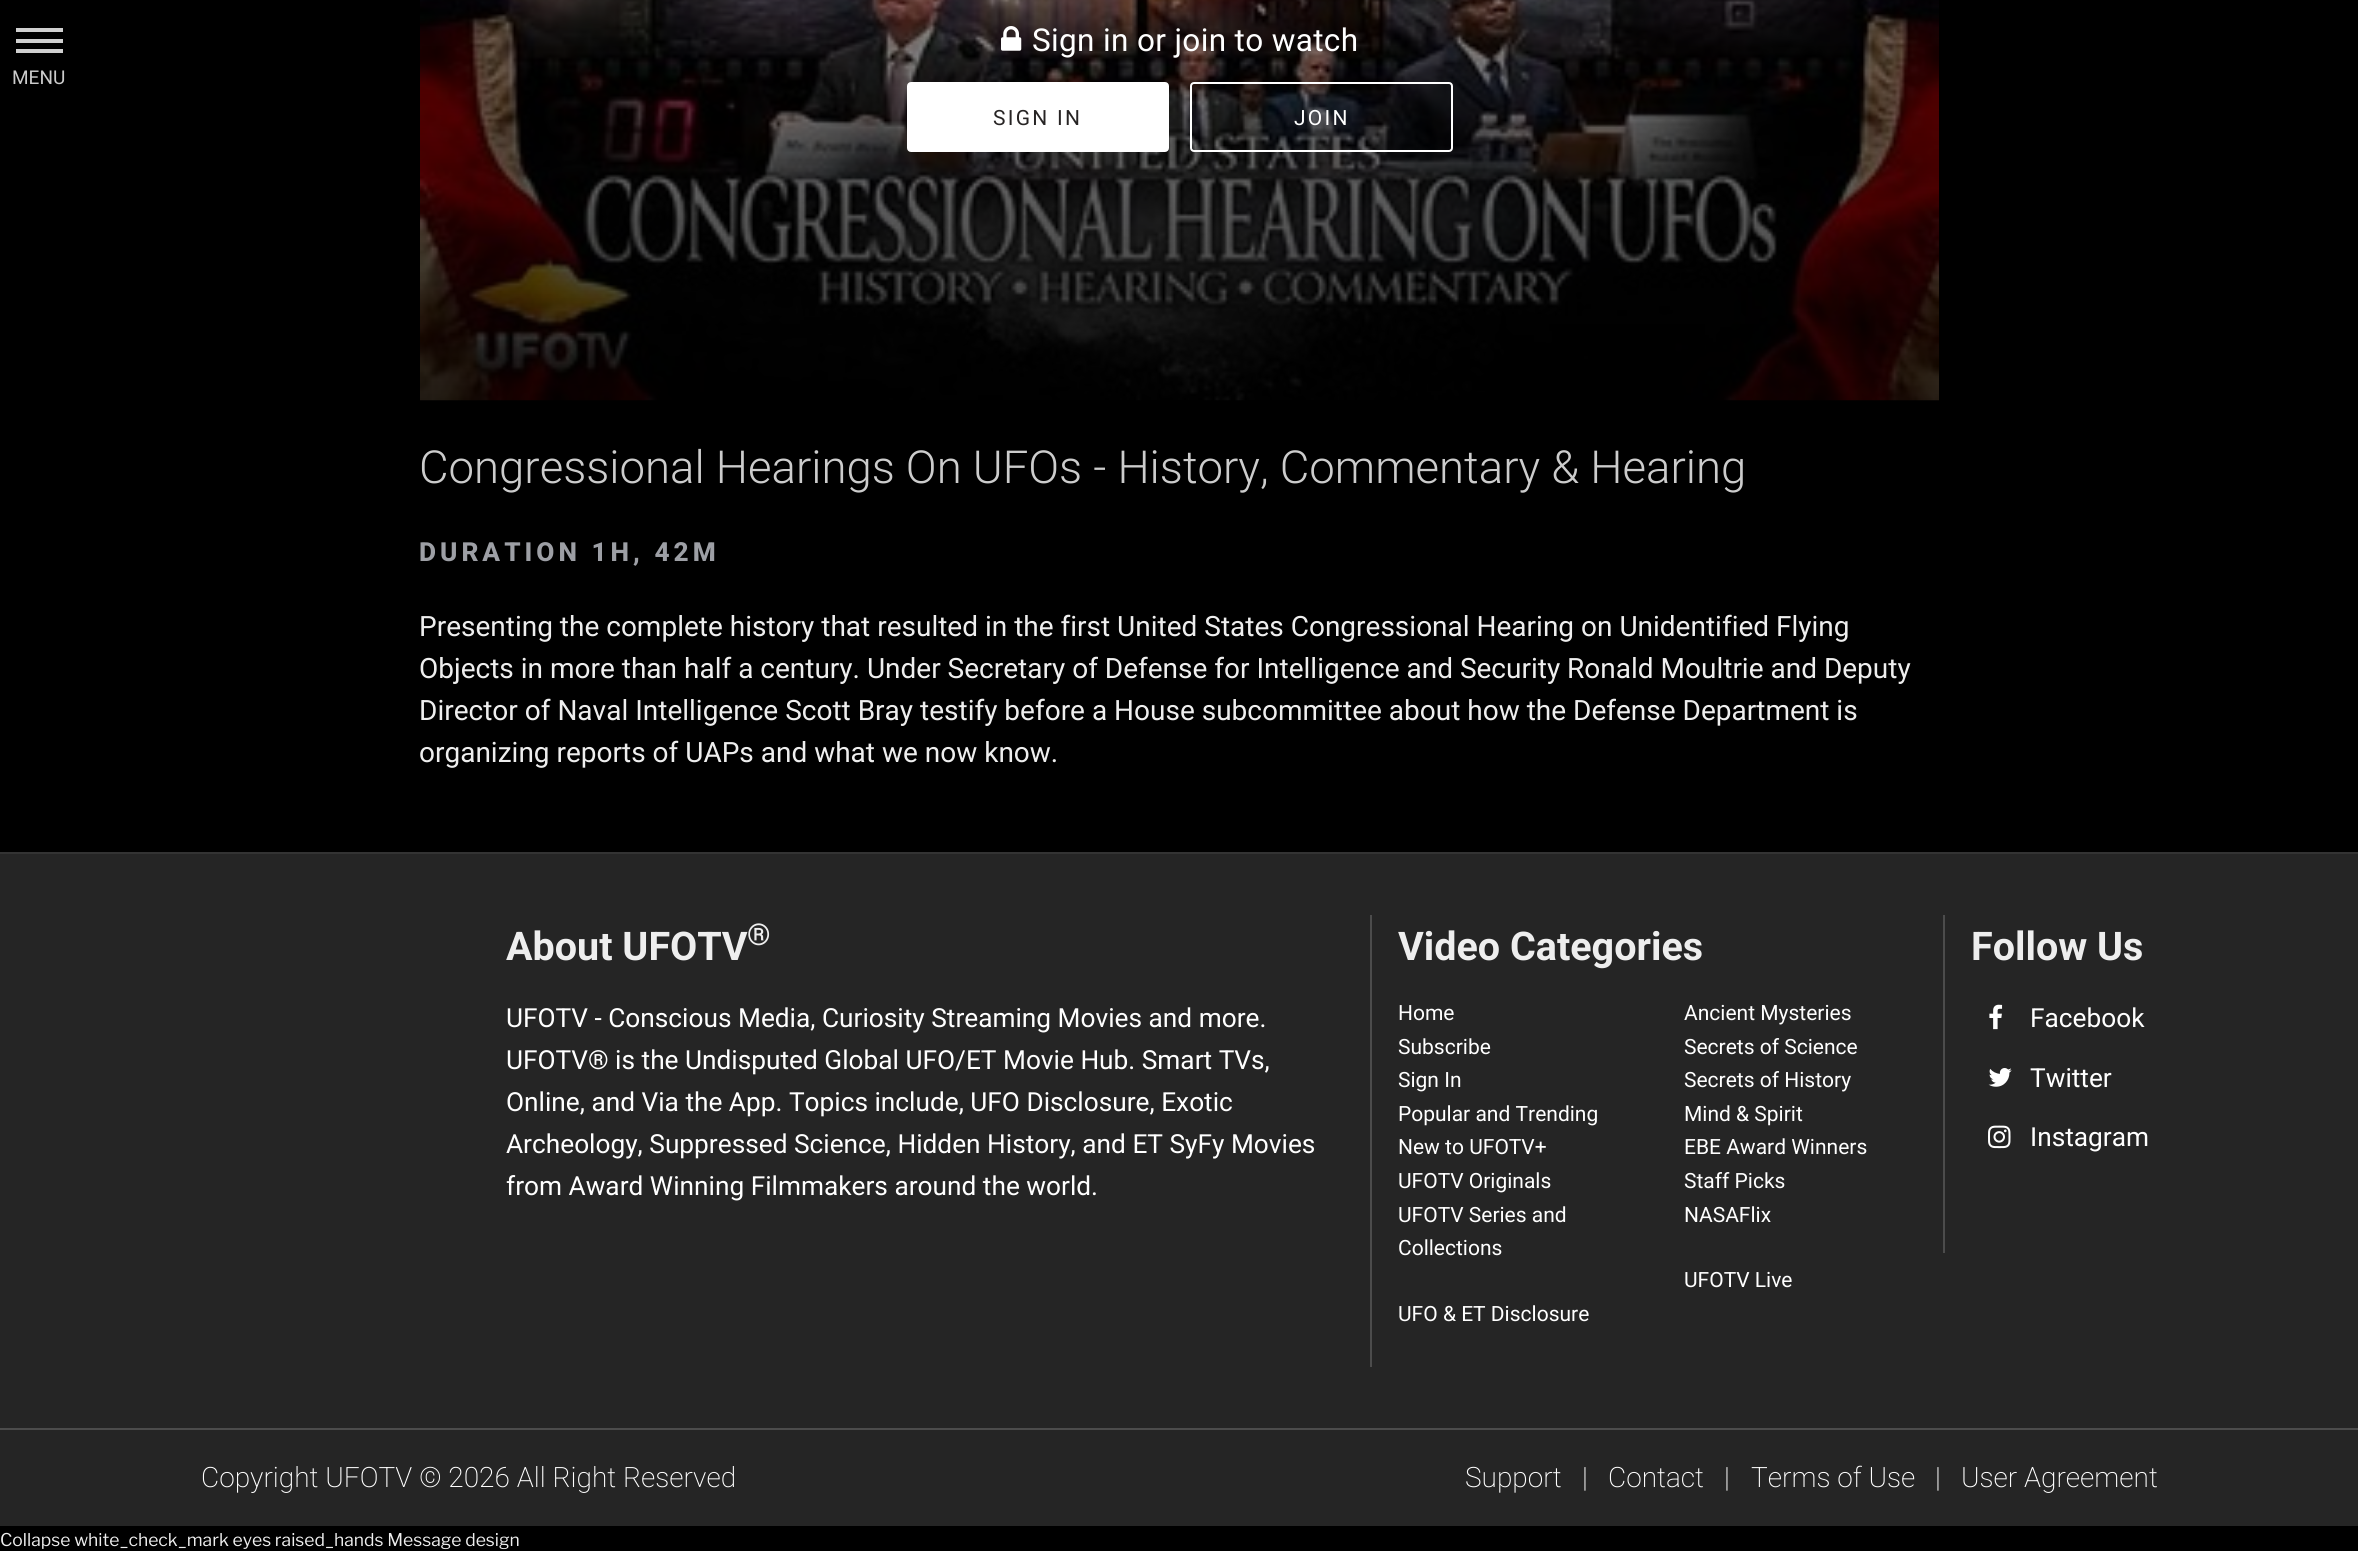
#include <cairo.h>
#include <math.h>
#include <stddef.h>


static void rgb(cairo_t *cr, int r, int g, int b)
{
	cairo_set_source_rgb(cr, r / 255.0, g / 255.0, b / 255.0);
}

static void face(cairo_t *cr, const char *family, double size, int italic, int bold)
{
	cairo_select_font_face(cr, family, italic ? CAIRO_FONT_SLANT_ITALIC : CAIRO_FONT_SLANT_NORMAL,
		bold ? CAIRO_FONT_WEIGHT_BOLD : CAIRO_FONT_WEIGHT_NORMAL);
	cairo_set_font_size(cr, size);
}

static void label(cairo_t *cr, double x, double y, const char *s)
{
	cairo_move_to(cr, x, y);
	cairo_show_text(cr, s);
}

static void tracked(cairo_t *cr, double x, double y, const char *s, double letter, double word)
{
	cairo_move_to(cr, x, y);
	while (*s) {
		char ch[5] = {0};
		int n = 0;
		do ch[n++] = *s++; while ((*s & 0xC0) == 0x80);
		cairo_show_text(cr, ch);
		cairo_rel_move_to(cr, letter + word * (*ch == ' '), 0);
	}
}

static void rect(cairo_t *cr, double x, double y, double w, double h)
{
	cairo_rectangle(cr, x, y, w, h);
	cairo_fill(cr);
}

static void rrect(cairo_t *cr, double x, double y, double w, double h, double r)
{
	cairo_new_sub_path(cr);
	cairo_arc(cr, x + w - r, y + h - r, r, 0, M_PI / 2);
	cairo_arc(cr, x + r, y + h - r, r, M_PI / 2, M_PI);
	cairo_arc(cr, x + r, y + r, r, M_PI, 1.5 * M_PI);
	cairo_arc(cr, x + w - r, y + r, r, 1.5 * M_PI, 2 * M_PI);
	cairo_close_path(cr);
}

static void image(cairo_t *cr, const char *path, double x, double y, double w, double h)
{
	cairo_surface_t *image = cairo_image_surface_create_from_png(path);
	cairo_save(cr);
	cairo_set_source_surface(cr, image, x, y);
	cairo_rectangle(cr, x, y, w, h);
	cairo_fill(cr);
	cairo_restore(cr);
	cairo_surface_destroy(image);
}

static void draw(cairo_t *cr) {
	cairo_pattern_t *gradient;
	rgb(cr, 0, 0, 0);
	cairo_paint(cr);
	rgb(cr, 208, 208, 208);
	rect(cr, 16, 39, 47, 4);
	rect(cr, 16, 28, 47, 4);
	rect(cr, 16, 49, 47, 4);
	face(cr, "Roboto", 19, 0, 0);
	rgb(cr, 204, 204, 204);
	label(cr, 12, 84, "MENU");
	image(cr, "image0.png", 420, 0, 1519, 401);
	gradient = cairo_pattern_create_linear(1180, -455, 1180, 401);
	cairo_pattern_add_color_stop_rgba(gradient, 0, 0, 0, 0, 0.37);
	cairo_pattern_add_color_stop_rgba(gradient, 0.52, 0, 0, 0, 0.45);
	cairo_pattern_add_color_stop_rgba(gradient, 1, 0, 0, 0, 0.82);
	cairo_set_source(cr, gradient);
	cairo_pattern_destroy(gradient);
	rect(cr, 420, 0, 1519, 401);
	image(cr, "image1.png", 1001, 26, 21, 25);
	face(cr, "Roboto", 31.5, 0, 0);
	rgb(cr, 255, 255, 255);
	tracked(cr, 1032, 51, "Sign in or join to watch", 0.35, 0);
	rrect(cr, 908, 83, 260, 68, 3);
	cairo_fill_preserve(cr);
	cairo_stroke(cr);
	face(cr, "Roboto", 21, 0, 0);
	rgb(cr, 39, 36, 36);
	tracked(cr, 993, 125, "SIGN IN", 2.25, 0);
	rrect(cr, 1191, 83, 261, 68, 3);
	rgb(cr, 255, 255, 255);
	cairo_stroke(cr);
	tracked(cr, 1294, 125, "JOIN", 2.25, 0);
	face(cr, "Roboto Light", 45.5, 0, 0);
	rgb(cr, 204, 204, 204);
	label(cr, 419, 483, "Congressional Hearings On UFOs - History, Commentary & Hearing");
	face(cr, "Roboto ExtraBold", 26.25, 0, 0);
	rgb(cr, 157, 159, 165);
	tracked(cr, 419, 561, "DURATION 1H, 42M", 4, 0);
	face(cr, "Roboto", 28, 0, 0);
	rgb(cr, 238, 238, 238);
	label(cr, 419, 636, "Presenting the complete history that resulted in the first United States Congressional Hearing on Unidentified Flying");
	label(cr, 419, 678, "Objects in more than half a century. Under Secretary of Defense for Intelligence and Security Ronald Moultrie and Deputy");
	label(cr, 419, 720, "Director of Naval Intelligence Scott Bray testify before a House subcommittee about how the Defense Department is");
	label(cr, 419, 762, "organizing reports of UAPs and what we now know.");
	rgb(cr, 37, 37, 37);
	rect(cr, 0, 854, 2358, 672);
	rgb(cr, 51, 51, 51);
	rect(cr, 0, 852, 2358, 2);
	face(cr, "Roboto", 39.5, 0, 1);
	rgb(cr, 238, 238, 238);
	label(cr, 506, 960, "About UFOTV");
	face(cr, "Roboto", 30, 0, 1);
	label(cr, 747, 945, "®");
	face(cr, "Roboto", 26.25, 0, 0);
	rgb(cr, 255, 255, 255);
	label(cr, 506, 1027, "UFOTV - Conscious Media, Curiosity Streaming Movies and more.");
	label(cr, 506, 1069, "UFOTV® is the Undisputed Global UFO/ET Movie Hub. Smart TVs,");
	label(cr, 506, 1111, "Online, and Via the App. Topics include, UFO Disclosure, Exotic");
	label(cr, 506, 1153, "Archeology, Suppressed Science, Hidden History, and ET SyFy Movies");
	label(cr, 506, 1195, "from Award Winning Filmmakers around the world.");
	rgb(cr, 76, 76, 76);
	rect(cr, 1370, 915, 2, 452);
	face(cr, "Roboto", 39.5, 0, 1);
	rgb(cr, 238, 238, 238);
	label(cr, 1398, 960, "Video Categories");
	face(cr, "Roboto", 21, 0, 0);
	rgb(cr, 255, 255, 255);
	label(cr, 1398, 1020, "Home");
	label(cr, 1684, 1020, "Ancient Mysteries");
	label(cr, 1398, 1054, "Subscribe");
	label(cr, 1684, 1054, "Secrets of Science");
	label(cr, 1398, 1087, "Sign In");
	label(cr, 1684, 1087, "Secrets of History");
	label(cr, 1398, 1121, "Popular and Trending");
	label(cr, 1684, 1121, "Mind & Spirit");
	label(cr, 1398, 1154, "New to UFOTV+");
	label(cr, 1684, 1154, "EBE Award Winners");
	label(cr, 1398, 1188, "UFOTV Originals");
	label(cr, 1684, 1188, "Staff Picks");
	label(cr, 1398, 1222, "UFOTV Series and");
	label(cr, 1398, 1255, "Collections");
	label(cr, 1684, 1222, "NASAFlix");
	label(cr, 1684, 1287, "UFOTV Live");
	label(cr, 1398, 1321, "UFO & ET Disclosure");
	rgb(cr, 76, 76, 76);
	rect(cr, 1943, 915, 2, 338);
	face(cr, "Roboto", 39.5, 0, 1);
	rgb(cr, 238, 238, 238);
	label(cr, 1971, 960, "Follow Us");
	image(cr, "image2.png", 1989, 1004, 14, 26);
	face(cr, "Roboto", 26.25, 0, 0);
	rgb(cr, 255, 255, 255);
	label(cr, 2030, 1027, "Facebook");
	image(cr, "image3.png", 1988, 1068, 24, 19);
	label(cr, 2030, 1087, "Twitter");
	image(cr, "image4.png", 1988, 1125, 23, 24);
	label(cr, 2030, 1146, "Instagram");
	rgb(cr, 76, 76, 76);
	rect(cr, 0, 1428, 2358, 2);
	face(cr, "Roboto ExtraLight", 28, 0, 0);
	rgb(cr, 255, 255, 255);
	label(cr, 201, 1487, "Copyright UFOTV © 2026 All Right Reserved");
	label(cr, 1465, 1487, "Support");
	label(cr, 1582, 1487, "|");
	label(cr, 1608, 1487, "Contact");
	label(cr, 1724, 1487, "|");
	label(cr, 1751, 1487, "Terms of Use");
	label(cr, 1935, 1487, "|");
	label(cr, 1961, 1487, "User Agreement");
	face(cr, "Libre Franklin", 17.5, 0, 0);
	rgb(cr, 238, 238, 238);
	label(cr, 0, 1546, "Collapse white_check_mark eyes raised_hands Message design");
}

int main(void) {
	cairo_surface_t *surface = cairo_image_surface_create(CAIRO_FORMAT_RGB24, 2358, 1551);
	cairo_t *cr = cairo_create(surface);
	cairo_font_options_t *options = cairo_font_options_create();
	cairo_font_options_set_hint_metrics(options, CAIRO_HINT_METRICS_OFF);
	cairo_font_options_set_hint_style(options, CAIRO_HINT_STYLE_NONE);
	cairo_set_font_options(cr, options);
	cairo_set_miter_limit(cr, 4);
	draw(cr);
	cairo_surface_write_to_png(surface, "render.png");
	cairo_font_options_destroy(options);
	cairo_destroy(cr);
	cairo_surface_destroy(surface);
	return 0;
}
